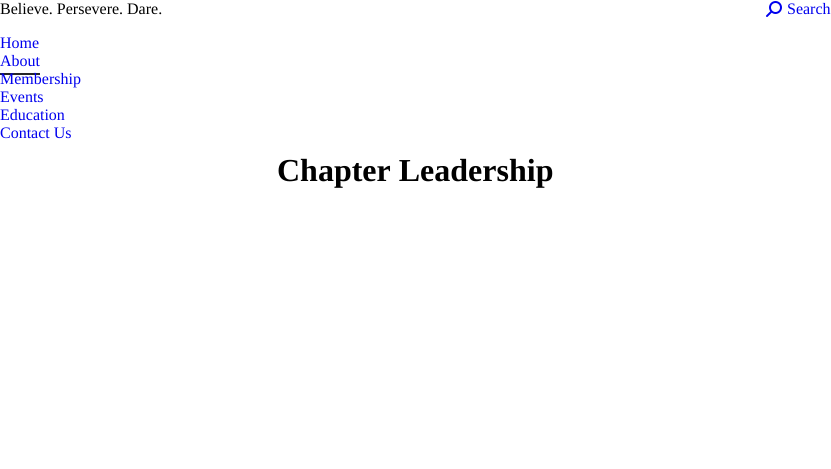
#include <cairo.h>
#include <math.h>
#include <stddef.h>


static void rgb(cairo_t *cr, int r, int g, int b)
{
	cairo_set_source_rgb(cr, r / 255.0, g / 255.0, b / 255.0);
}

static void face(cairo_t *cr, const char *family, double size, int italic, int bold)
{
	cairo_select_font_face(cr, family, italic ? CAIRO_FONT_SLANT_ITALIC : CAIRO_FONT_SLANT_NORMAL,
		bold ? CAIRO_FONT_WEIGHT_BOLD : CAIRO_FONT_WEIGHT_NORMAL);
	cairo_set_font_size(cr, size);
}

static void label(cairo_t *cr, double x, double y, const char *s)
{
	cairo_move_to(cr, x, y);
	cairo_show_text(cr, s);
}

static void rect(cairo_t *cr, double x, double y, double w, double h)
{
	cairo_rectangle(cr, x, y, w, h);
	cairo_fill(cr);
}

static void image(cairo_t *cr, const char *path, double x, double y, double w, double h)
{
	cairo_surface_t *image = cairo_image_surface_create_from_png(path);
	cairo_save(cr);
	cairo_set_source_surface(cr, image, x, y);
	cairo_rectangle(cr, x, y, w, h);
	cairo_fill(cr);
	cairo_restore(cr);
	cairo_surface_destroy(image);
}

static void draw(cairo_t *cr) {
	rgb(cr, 255, 255, 255);
	cairo_paint(cr);
	face(cr, "Liberation Serif", 16, 0, 0);
	rgb(cr, 0, 0, 0);
	label(cr, 0, 14, "Believe. Persevere. Dare.");
	image(cr, "image0.png", 766, 1, 16, 16);
	rgb(cr, 0, 0, 238);
	label(cr, 787, 14, "Search");
	label(cr, 0, 48, "Home");
	label(cr, 0, 66, "About");
	rgb(cr, 38, 38, 38);
	rect(cr, 0, 73, 40, 2);
	rgb(cr, 0, 0, 238);
	label(cr, 0, 84, "Membership");
	label(cr, 0, 102, "Events");
	label(cr, 0, 120, "Education");
	label(cr, 0, 138, "Contact Us");
	face(cr, "Liberation Serif", 32, 0, 1);
	rgb(cr, 0, 0, 0);
	label(cr, 277, 181, "Chapter Leadership");
}

int main(void) {
	cairo_surface_t *surface = cairo_image_surface_create(CAIRO_FORMAT_RGB24, 831, 469);
	cairo_t *cr = cairo_create(surface);
	cairo_font_options_t *options = cairo_font_options_create();
	cairo_font_options_set_hint_metrics(options, CAIRO_HINT_METRICS_OFF);
	cairo_font_options_set_hint_style(options, CAIRO_HINT_STYLE_NONE);
	cairo_set_font_options(cr, options);
	cairo_set_miter_limit(cr, 4);
	draw(cr);
	cairo_surface_write_to_png(surface, "render.png");
	cairo_font_options_destroy(options);
	cairo_destroy(cr);
	cairo_surface_destroy(surface);
	return 0;
}
